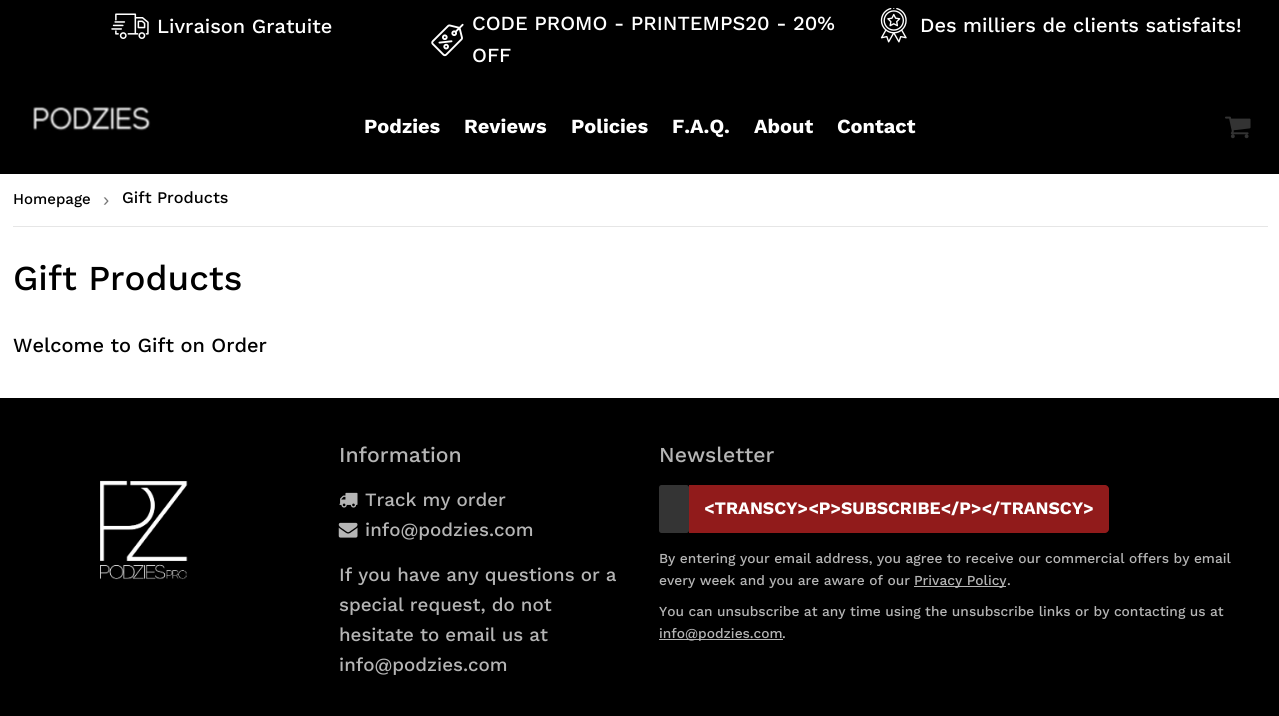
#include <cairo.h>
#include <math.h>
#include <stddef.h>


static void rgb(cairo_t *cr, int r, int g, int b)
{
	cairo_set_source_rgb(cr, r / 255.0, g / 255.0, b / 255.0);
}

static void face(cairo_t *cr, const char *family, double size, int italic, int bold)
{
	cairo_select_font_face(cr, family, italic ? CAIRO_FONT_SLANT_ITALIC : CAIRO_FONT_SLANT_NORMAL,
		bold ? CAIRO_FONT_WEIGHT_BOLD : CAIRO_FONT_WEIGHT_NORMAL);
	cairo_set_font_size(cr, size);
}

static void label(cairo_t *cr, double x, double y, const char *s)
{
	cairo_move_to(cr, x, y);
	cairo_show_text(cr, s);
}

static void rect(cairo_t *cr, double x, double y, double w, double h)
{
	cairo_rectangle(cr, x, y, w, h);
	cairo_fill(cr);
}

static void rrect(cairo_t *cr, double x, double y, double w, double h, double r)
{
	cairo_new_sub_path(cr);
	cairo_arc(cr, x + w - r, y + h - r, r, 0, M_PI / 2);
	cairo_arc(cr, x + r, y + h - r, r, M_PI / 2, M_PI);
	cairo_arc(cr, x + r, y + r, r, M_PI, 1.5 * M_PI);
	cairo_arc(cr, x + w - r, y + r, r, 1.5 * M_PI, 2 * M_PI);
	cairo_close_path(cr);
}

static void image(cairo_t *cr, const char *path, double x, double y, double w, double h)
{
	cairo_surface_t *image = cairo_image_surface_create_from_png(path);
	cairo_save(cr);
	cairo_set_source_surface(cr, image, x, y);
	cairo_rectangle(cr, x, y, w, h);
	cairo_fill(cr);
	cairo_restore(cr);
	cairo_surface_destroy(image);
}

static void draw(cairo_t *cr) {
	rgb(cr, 255, 255, 255);
	cairo_paint(cr);
	rgb(cr, 0, 0, 0);
	rect(cr, 0, 0, 1279, 174);
	image(cr, "image0.png", 111, 13, 38, 26);
	face(cr, "Work Sans Medium", 20, 0, 0);
	rgb(cr, 255, 255, 255);
	label(cr, 157, 33, "Livraison Gratuite");
	image(cr, "image1.png", 431, 23, 33, 34);
	label(cr, 472, 30, "CODE PROMO - PRINTEMPS20 - 20%");
	label(cr, 472, 62, "OFF");
	image(cr, "image2.png", 880, 8, 27, 35);
	label(cr, 920, 32, "Des milliers de clients satisfaits!");
	image(cr, "image3.png", 33, 106, 118, 25);
	face(cr, "Work Sans", 20, 0, 1);
	label(cr, 364, 133, "Podzies");
	label(cr, 464, 133, "Reviews");
	label(cr, 571, 133, "Policies");
	label(cr, 672, 133, "F.A.Q.");
	label(cr, 754, 133, "About");
	label(cr, 837, 133, "Contact");
	image(cr, "image4.png", 1225, 116, 26, 23);
	rgb(cr, 230, 230, 230);
	rect(cr, 13, 226, 1255, 1);
	face(cr, "Work Sans Medium", 15, 0, 0);
	rgb(cr, 0, 0, 0);
	label(cr, 13, 204, "Homepage");
	face(cr, "Liberation Sans", 18.75, 0, 0);
	rgb(cr, 118, 118, 118);
	label(cr, 103, 206, "›");
	face(cr, "Work Sans Medium", 16.25, 0, 0);
	rgb(cr, 0, 0, 0);
	label(cr, 122, 203, "Gift Products");
	face(cr, "Work Sans Medium", 35, 0, 0);
	label(cr, 13, 290, "Gift Products");
	face(cr, "Work Sans Medium", 20, 0, 0);
	label(cr, 13, 352, "Welcome to Gift on Order");
	rect(cr, 0, 398, 1279, 318);
	image(cr, "image5.png", 100, 480, 88, 100);
	face(cr, "Work Sans Medium", 21.25, 0, 0);
	rgb(cr, 181, 181, 181);
	label(cr, 339, 462, "Information");
	image(cr, "image6.png", 339, 492, 19, 16);
	face(cr, "Work Sans Medium", 18.75, 0, 0);
	label(cr, 365, 506, "Track my order");
	image(cr, "image7.png", 338, 522, 20, 16);
	label(cr, 365, 536, "info@podzies.com");
	label(cr, 339, 581, "If you have any questions or a");
	label(cr, 339, 611, "special request, do not");
	label(cr, 339, 641, "hesitate to email us at");
	label(cr, 339, 671, "info@podzies.com");
	face(cr, "Work Sans Medium", 21.25, 0, 0);
	label(cr, 659, 462, "Newsletter");
	rgb(cr, 52, 52, 52);
	rrect(cr, 659, 485, 30, 48, 2.5);
	cairo_fill(cr);
	rgb(cr, 145, 27, 27);
	cairo_new_path(cr);
	cairo_move_to(cr, 689, 485);
	cairo_line_to(cr, 1105, 485);
	cairo_curve_to(cr, 1107, 485, 1109, 487, 1109, 489);
	cairo_line_to(cr, 1109, 529);
	cairo_curve_to(cr, 1109, 531, 1107, 533, 1105, 533);
	cairo_line_to(cr, 689, 533);
	cairo_close_path(cr);
	cairo_fill(cr);
	face(cr, "Work Sans", 17.5, 0, 1);
	rgb(cr, 255, 255, 255);
	label(cr, 704, 514, "<TRANSCY><P>SUBSCRIBE</P></TRANSCY>");
	face(cr, "Work Sans Medium", 13.75, 0, 0);
	rgb(cr, 181, 181, 181);
	label(cr, 659, 563, "By entering your email address, you agree to receive our commercial offers by email");
	label(cr, 659, 585, "every week and you are aware of our");
	rect(cr, 914, 586, 92, 1);
	label(cr, 914, 585, "Privacy Policy");
	label(cr, 1007, 585, ".");
	label(cr, 659, 616, "You can unsubscribe at any time using the unsubscribe links or by contacting us at");
	rect(cr, 659, 639, 124, 1);
	label(cr, 659, 638, "info@podzies.com");
	label(cr, 782, 638, ".");
}

int main(void) {
	cairo_surface_t *surface = cairo_image_surface_create(CAIRO_FORMAT_RGB24, 1279, 716);
	cairo_t *cr = cairo_create(surface);
	cairo_font_options_t *options = cairo_font_options_create();
	cairo_font_options_set_hint_metrics(options, CAIRO_HINT_METRICS_OFF);
	cairo_font_options_set_hint_style(options, CAIRO_HINT_STYLE_NONE);
	cairo_set_font_options(cr, options);
	cairo_set_miter_limit(cr, 4);
	draw(cr);
	cairo_surface_write_to_png(surface, "render.png");
	cairo_font_options_destroy(options);
	cairo_destroy(cr);
	cairo_surface_destroy(surface);
	return 0;
}
